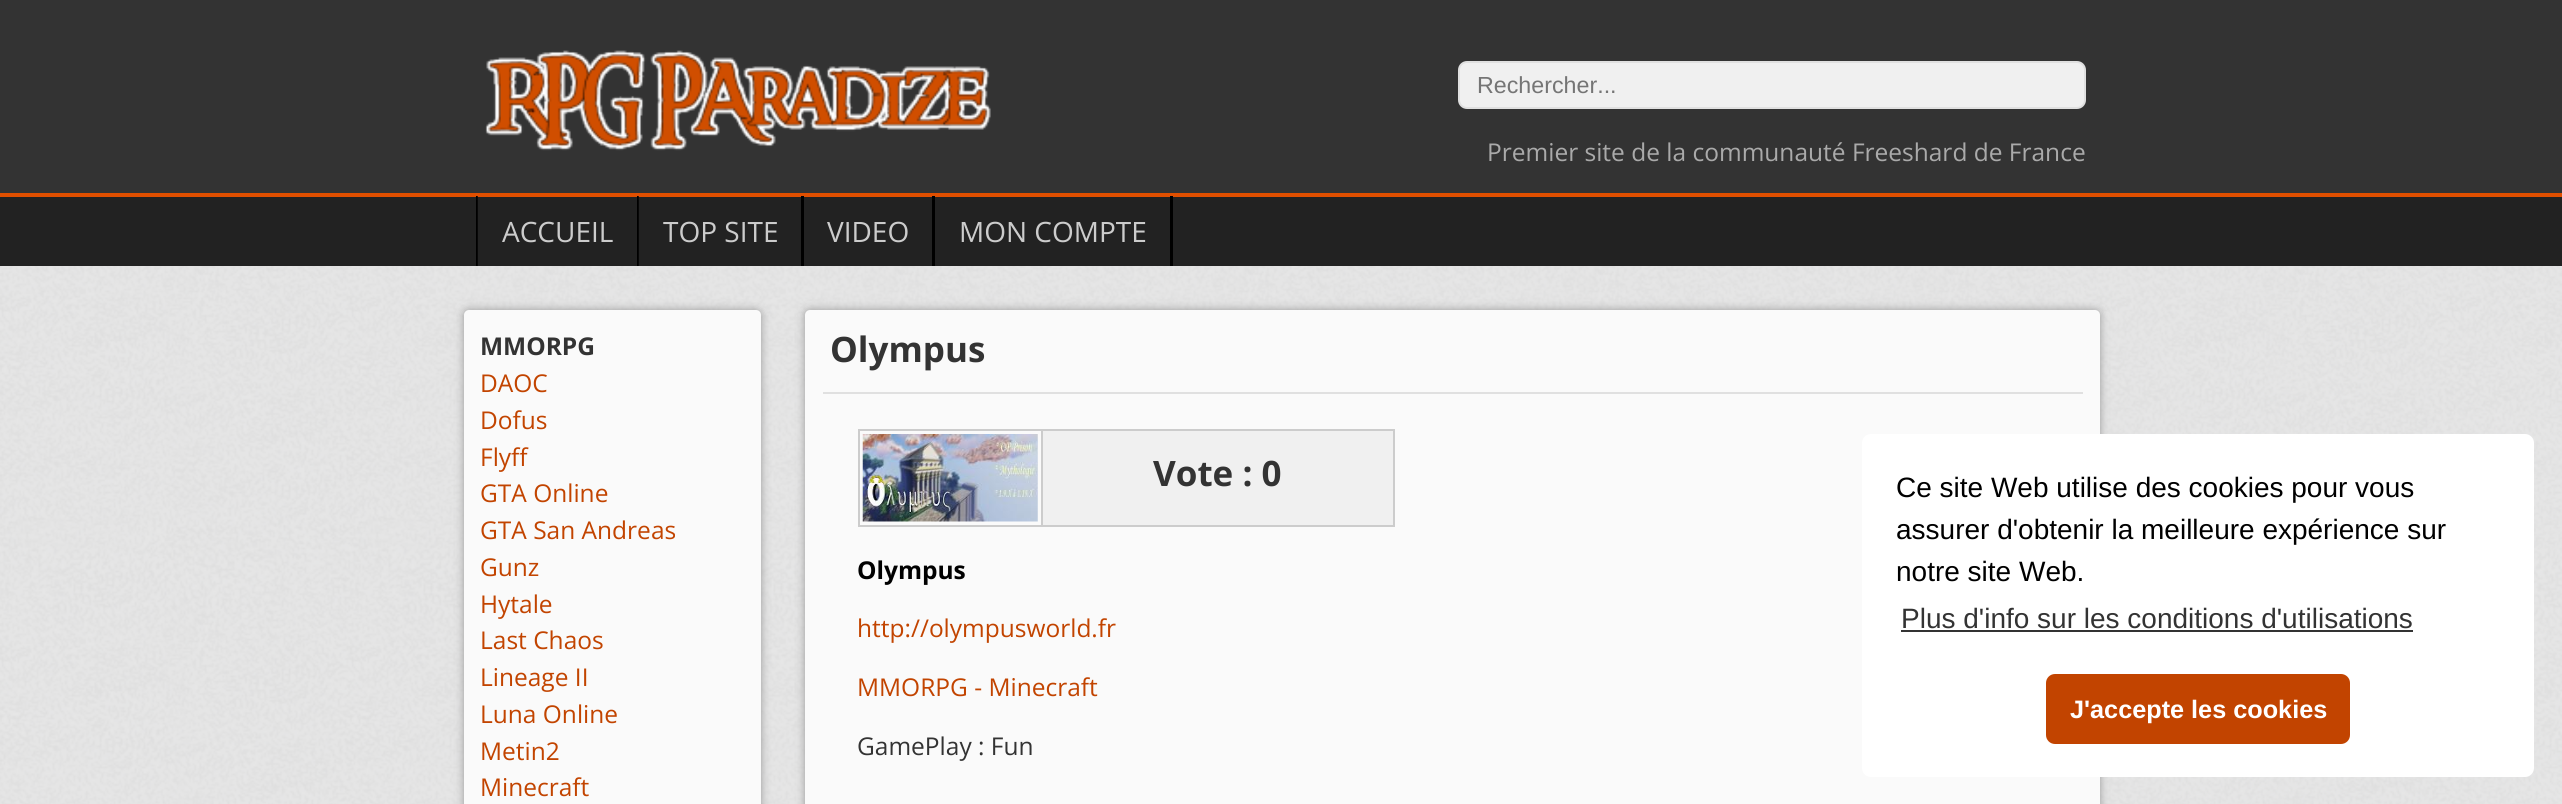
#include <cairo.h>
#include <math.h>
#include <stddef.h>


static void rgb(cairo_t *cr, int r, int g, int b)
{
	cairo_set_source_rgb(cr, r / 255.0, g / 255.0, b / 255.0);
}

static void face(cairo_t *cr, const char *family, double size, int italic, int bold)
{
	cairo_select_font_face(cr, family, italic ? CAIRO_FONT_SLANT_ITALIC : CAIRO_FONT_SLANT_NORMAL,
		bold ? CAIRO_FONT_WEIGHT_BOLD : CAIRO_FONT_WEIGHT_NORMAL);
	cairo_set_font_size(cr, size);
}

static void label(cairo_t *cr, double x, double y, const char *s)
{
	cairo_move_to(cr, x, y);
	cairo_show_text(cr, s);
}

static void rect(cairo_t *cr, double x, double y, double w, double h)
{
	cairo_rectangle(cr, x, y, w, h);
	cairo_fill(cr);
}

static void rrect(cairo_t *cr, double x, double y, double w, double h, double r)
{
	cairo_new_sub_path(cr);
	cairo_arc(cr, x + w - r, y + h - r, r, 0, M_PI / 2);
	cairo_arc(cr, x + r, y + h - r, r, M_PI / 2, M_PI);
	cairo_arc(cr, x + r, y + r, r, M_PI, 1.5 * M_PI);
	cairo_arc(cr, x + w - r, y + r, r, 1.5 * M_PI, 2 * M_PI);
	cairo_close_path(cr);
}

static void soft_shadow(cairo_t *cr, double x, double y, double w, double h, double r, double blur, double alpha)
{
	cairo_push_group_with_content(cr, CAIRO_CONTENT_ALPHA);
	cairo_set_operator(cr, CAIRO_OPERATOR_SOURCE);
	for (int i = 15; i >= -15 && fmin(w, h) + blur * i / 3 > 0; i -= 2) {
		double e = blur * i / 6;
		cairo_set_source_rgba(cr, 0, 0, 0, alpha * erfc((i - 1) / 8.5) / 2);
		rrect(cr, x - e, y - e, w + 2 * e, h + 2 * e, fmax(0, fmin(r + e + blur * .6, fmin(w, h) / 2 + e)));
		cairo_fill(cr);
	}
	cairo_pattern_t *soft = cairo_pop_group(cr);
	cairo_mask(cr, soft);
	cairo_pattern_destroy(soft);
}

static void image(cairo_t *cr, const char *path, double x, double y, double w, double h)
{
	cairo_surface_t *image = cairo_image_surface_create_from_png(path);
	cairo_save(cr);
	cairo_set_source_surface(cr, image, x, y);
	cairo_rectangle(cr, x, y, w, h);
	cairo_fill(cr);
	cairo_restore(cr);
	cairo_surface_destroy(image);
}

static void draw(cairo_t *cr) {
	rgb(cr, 255, 255, 255);
	cairo_paint(cr);
	image(cr, "image0.png", 0, 266, 2562, 538);
	rgb(cr, 51, 51, 51);
	rect(cr, 0, 0, 2562, 193);
	image(cr, "image1.png", 485, 50, 506, 101);
	rgb(cr, 240, 240, 240);
	rrect(cr, 1459, 62, 626, 46, 8);
	cairo_fill_preserve(cr);
	rgb(cr, 224, 224, 224);
	cairo_stroke(cr);
	face(cr, "Liberation Sans", 23.25, 0, 0);
	rgb(cr, 117, 117, 117);
	label(cr, 1477, 93, "Rechercher...");
	face(cr, "Open Sans", 24.5, 0, 0);
	rgb(cr, 170, 170, 170);
	label(cr, 1487, 161, "Premier site de la communauté Freeshard de France");
	rgb(cr, 34, 34, 34);
	rect(cr, 0, 197, 2562, 69);
	rgb(cr, 224, 79, 0);
	rect(cr, 0, 193, 2562, 4);
	image(cr, "image2.png", 476, 196, 2, 70);
	face(cr, "Open Sans", 28, 0, 0);
	rgb(cr, 204, 204, 204);
	label(cr, 502, 242, "ACCUEIL");
	image(cr, "image2.png", 637, 196, 2, 70);
	label(cr, 663, 242, "TOP SITE");
	rgb(cr, 0, 0, 0);
	rect(cr, 801, 196, 3, 70);
	rgb(cr, 204, 204, 204);
	label(cr, 827, 242, "VIDEO");
	rgb(cr, 0, 0, 0);
	rect(cr, 932, 196, 3, 70);
	rgb(cr, 204, 204, 204);
	label(cr, 959, 242, "MON COMPTE");
	rgb(cr, 0, 0, 0);
	rect(cr, 1170, 196, 3, 70);
	rgb(cr, 153, 153, 153);
	soft_shadow(cr, 464, 310, 297, 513, 5, 4.5, 1);
	rgb(cr, 250, 250, 250);
	rrect(cr, 464, 310, 297, 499, 5);
	cairo_fill(cr);
	face(cr, "Open Sans", 24.5, 0, 1);
	rgb(cr, 51, 51, 51);
	label(cr, 480, 355, "MMORPG");
	face(cr, "Open Sans", 24.5, 0, 0);
	rgb(cr, 194, 68, 0);
	label(cr, 480, 392, "DAOC");
	label(cr, 480, 429, "Dofus");
	label(cr, 480, 466, "Flyff");
	label(cr, 480, 502, "GTA Online");
	label(cr, 480, 539, "GTA San Andreas");
	label(cr, 480, 576, "Gunz");
	label(cr, 480, 613, "Hytale");
	label(cr, 480, 649, "Last Chaos");
	label(cr, 480, 686, "Lineage II");
	label(cr, 480, 723, "Luna Online");
	label(cr, 480, 760, "Metin2");
	label(cr, 480, 796, "Minecraft");
	rgb(cr, 153, 153, 153);
	soft_shadow(cr, 805, 310, 1295, 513, 5, 4.5, 1);
	rgb(cr, 250, 250, 250);
	rrect(cr, 805, 310, 1295, 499, 5);
	cairo_fill(cr);
	face(cr, "Open Sans", 35, 0, 1);
	rgb(cr, 51, 51, 51);
	label(cr, 830, 362, "Olympus");
	rgb(cr, 224, 224, 224);
	rect(cr, 823, 392, 1260, 2);
	cairo_rectangle(cr, 859, 430, 183, 96);
	rgb(cr, 204, 204, 204);
	cairo_stroke(cr);
	image(cr, "image3.png", 862, 434, 176, 88);
	rgb(cr, 240, 240, 240);
	rect(cr, 1043, 431, 350, 94);
	rgb(cr, 204, 204, 204);
	rect(cr, 1043, 429, 352, 2);
	rect(cr, 1393, 429, 2, 98);
	rect(cr, 1043, 525, 352, 2);
	rgb(cr, 51, 51, 51);
	label(cr, 1153, 486, "Vote : 0");
	face(cr, "Open Sans", 24.5, 0, 1);
	rgb(cr, 0, 0, 0);
	label(cr, 857, 579, "Olympus");
	face(cr, "Open Sans", 24.5, 0, 0);
	rgb(cr, 194, 68, 0);
	label(cr, 857, 637, "http://olympusworld.fr");
	label(cr, 857, 696, "MMORPG - Minecraft");
	rgb(cr, 51, 51, 51);
	label(cr, 857, 755, "GamePlay : Fun");
	rgb(cr, 255, 255, 255);
	rrect(cr, 1862, 434, 672, 343, 9);
	cairo_fill(cr);
	face(cr, "Liberation Sans", 28, 0, 0);
	rgb(cr, 0, 0, 0);
	label(cr, 1896, 497, "Ce site Web utilise des cookies pour vous");
	label(cr, 1896, 539, "assurer d'obtenir la meilleure expérience sur");
	label(cr, 1896, 581, "notre site Web.");
	rgb(cr, 51, 51, 51);
	label(cr, 1901, 628, "Plus d'info sur les conditions d'utilisations");
	rect(cr, 1901, 630, 512, 2);
	rgb(cr, 194, 68, 0);
	rrect(cr, 2046, 674, 304, 70, 9);
	cairo_fill(cr);
	face(cr, "Liberation Sans", 25.25, 0, 1);
	rgb(cr, 255, 255, 255);
	label(cr, 2070, 718, "J'accepte les cookies");
}

int main(void) {
	cairo_surface_t *surface = cairo_image_surface_create(CAIRO_FORMAT_RGB24, 2562, 804);
	cairo_t *cr = cairo_create(surface);
	cairo_font_options_t *options = cairo_font_options_create();
	cairo_font_options_set_hint_metrics(options, CAIRO_HINT_METRICS_OFF);
	cairo_font_options_set_hint_style(options, CAIRO_HINT_STYLE_NONE);
	cairo_set_font_options(cr, options);
	cairo_set_miter_limit(cr, 4);
	draw(cr);
	cairo_surface_write_to_png(surface, "render.png");
	cairo_font_options_destroy(options);
	cairo_destroy(cr);
	cairo_surface_destroy(surface);
	return 0;
}
